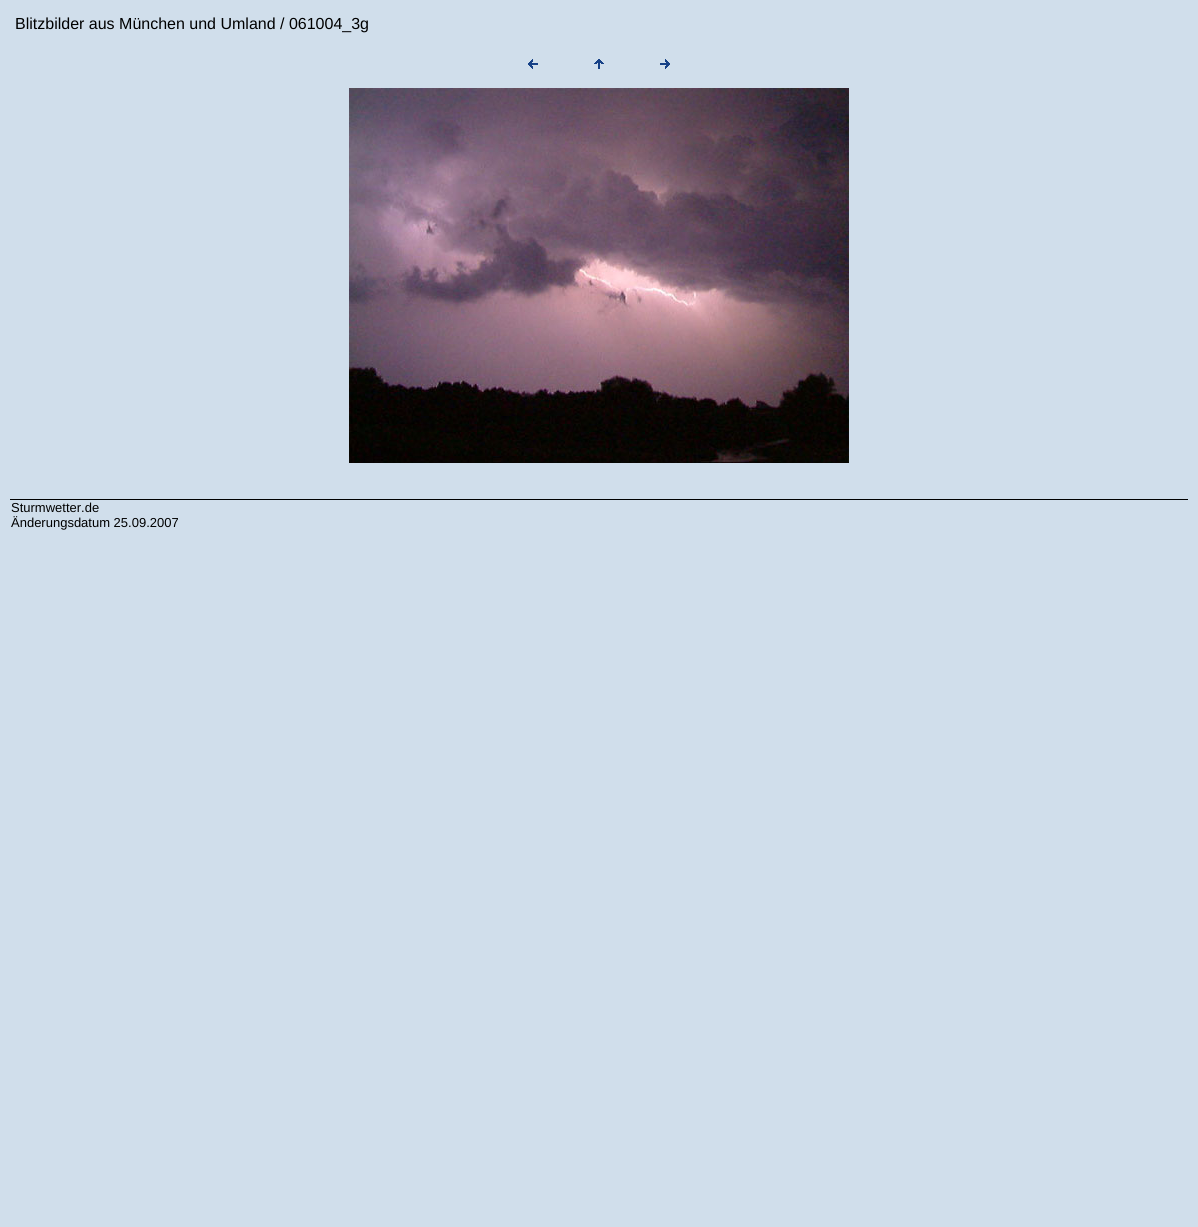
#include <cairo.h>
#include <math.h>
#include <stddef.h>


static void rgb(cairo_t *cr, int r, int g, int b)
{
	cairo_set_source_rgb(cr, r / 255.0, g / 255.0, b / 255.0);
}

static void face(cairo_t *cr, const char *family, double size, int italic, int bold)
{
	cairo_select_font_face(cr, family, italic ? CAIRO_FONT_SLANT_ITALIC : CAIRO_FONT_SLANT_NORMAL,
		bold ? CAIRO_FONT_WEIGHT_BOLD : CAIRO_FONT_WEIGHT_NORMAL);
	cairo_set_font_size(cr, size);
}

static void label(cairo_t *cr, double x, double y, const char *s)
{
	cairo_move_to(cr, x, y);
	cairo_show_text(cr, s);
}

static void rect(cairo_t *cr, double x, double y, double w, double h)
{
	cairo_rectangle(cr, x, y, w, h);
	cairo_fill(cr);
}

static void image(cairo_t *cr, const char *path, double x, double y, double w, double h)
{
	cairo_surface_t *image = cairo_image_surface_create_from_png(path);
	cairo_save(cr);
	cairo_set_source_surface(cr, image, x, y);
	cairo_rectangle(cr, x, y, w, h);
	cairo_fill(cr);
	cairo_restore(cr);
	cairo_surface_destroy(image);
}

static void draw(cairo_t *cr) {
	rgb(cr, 208, 222, 235);
	cairo_paint(cr);
	face(cr, "Liberation Sans", 16, 0, 0);
	rgb(cr, 0, 0, 0);
	label(cr, 15, 29, "Blitzbilder aus München und Umland / 061004_3g");
	image(cr, "image0.png", 528, 59, 10, 10);
	image(cr, "image1.png", 594, 59, 10, 10);
	image(cr, "image2.png", 660, 59, 10, 10);
	image(cr, "image3.png", 349, 88, 500, 375);
	rect(cr, 10, 499, 1178, 1);
	face(cr, "Liberation Sans", 13, 0, 0);
	label(cr, 11, 512, "Sturmwetter.de");
	label(cr, 11, 527, "Änderungsdatum 25.09.2007");
}

int main(void) {
	cairo_surface_t *surface = cairo_image_surface_create(CAIRO_FORMAT_RGB24, 1198, 1227);
	cairo_t *cr = cairo_create(surface);
	cairo_font_options_t *options = cairo_font_options_create();
	cairo_font_options_set_hint_metrics(options, CAIRO_HINT_METRICS_OFF);
	cairo_font_options_set_hint_style(options, CAIRO_HINT_STYLE_NONE);
	cairo_set_font_options(cr, options);
	cairo_set_miter_limit(cr, 4);
	draw(cr);
	cairo_surface_write_to_png(surface, "render.png");
	cairo_font_options_destroy(options);
	cairo_destroy(cr);
	cairo_surface_destroy(surface);
	return 0;
}
